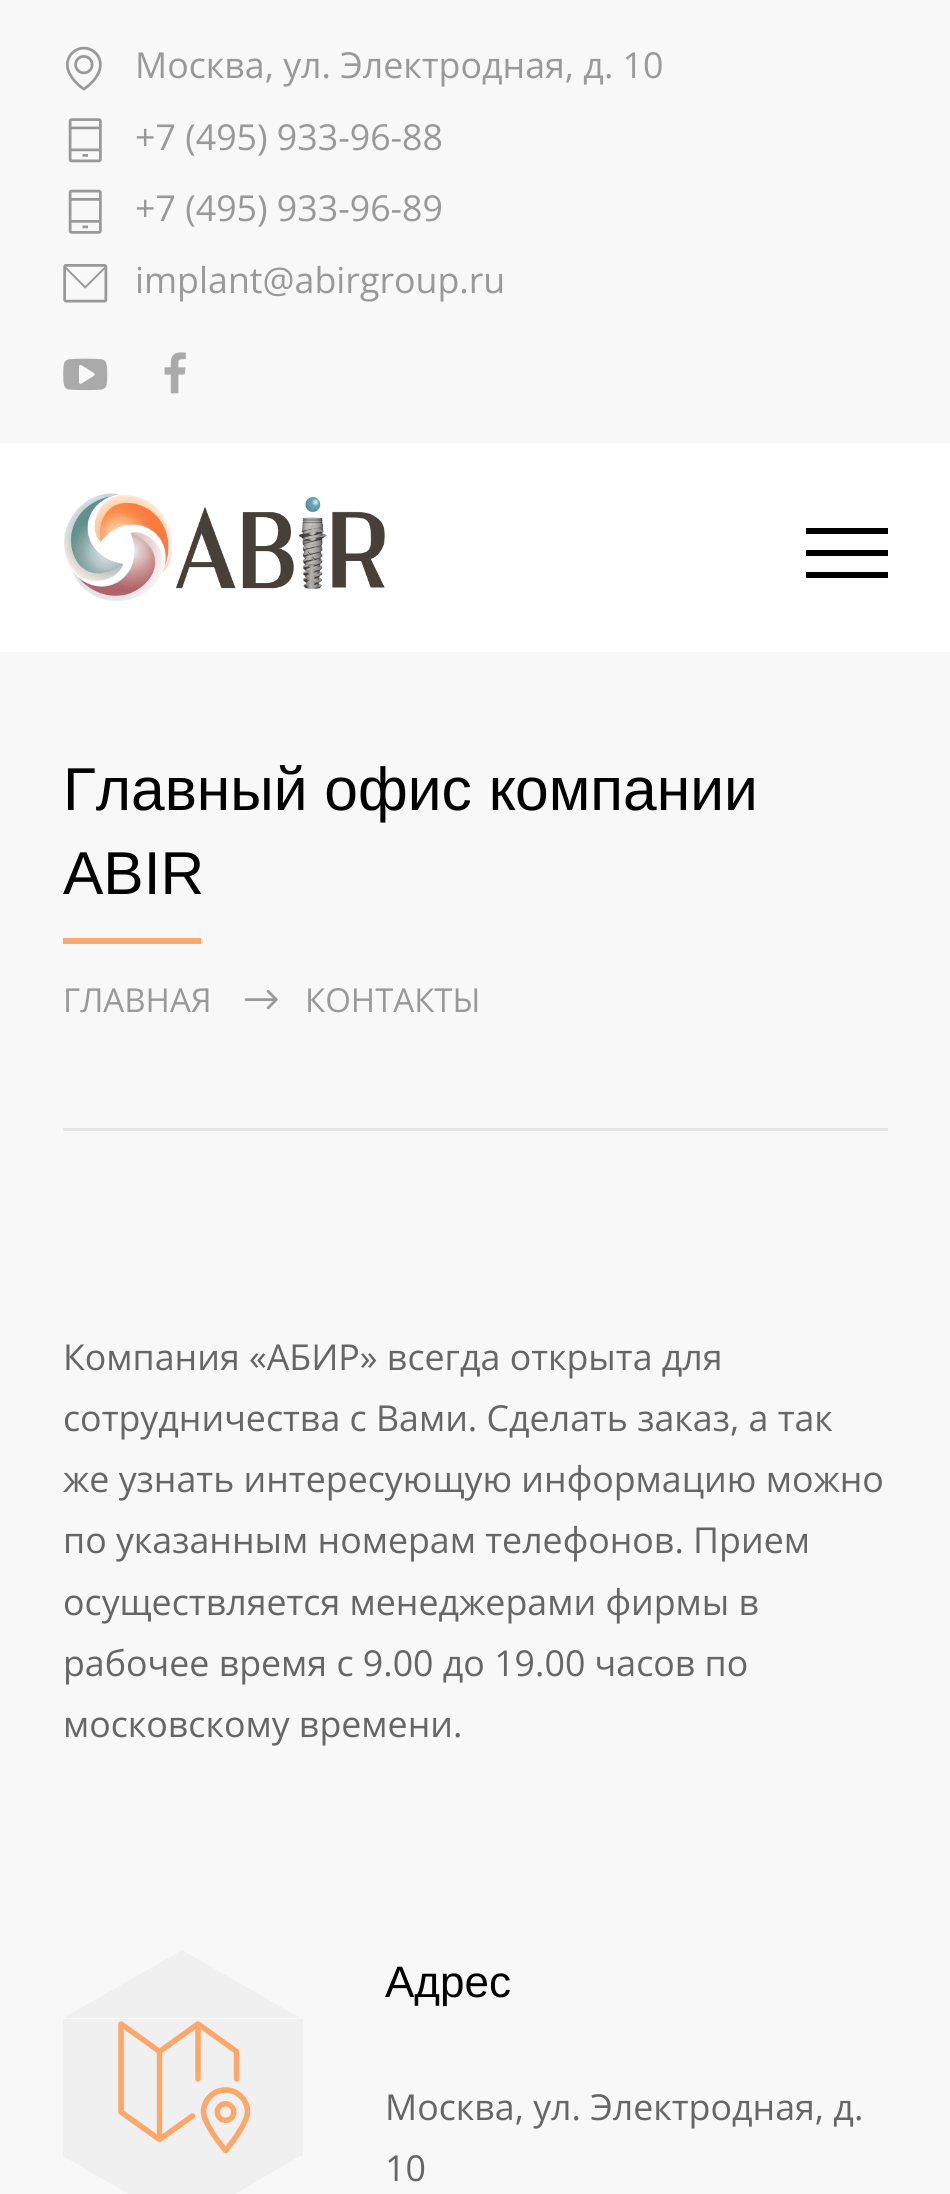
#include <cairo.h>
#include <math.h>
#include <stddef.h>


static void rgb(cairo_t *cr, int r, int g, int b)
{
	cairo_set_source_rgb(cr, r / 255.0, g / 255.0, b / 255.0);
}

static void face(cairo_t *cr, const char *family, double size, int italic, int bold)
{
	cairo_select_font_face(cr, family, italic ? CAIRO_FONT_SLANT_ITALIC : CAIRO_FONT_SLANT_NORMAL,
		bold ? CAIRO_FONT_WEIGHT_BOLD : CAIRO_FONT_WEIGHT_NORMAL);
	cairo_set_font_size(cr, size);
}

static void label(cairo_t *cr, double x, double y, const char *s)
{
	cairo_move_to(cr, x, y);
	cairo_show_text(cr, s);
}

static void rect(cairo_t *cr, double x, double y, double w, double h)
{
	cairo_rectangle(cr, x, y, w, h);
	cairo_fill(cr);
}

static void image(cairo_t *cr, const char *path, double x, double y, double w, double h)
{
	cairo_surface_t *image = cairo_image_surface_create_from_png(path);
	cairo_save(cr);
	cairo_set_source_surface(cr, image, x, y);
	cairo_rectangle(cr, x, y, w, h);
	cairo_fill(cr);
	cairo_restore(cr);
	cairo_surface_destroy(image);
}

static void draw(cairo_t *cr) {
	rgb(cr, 248, 248, 248);
	cairo_paint(cr);
	image(cr, "image0.png", 66, 46, 36, 45);
	face(cr, "Open Sans", 35.75, 0, 0);
	rgb(cr, 153, 153, 153);
	label(cr, 135, 78, "Москва, ул. Электродная, д. 10");
	image(cr, "image1.png", 68, 118, 34, 45);
	label(cr, 135, 150, "+7 (495) 933-96-88");
	image(cr, "image2.png", 68, 189, 34, 45);
	label(cr, 135, 221, "+7 (495) 933-96-89");
	image(cr, "image3.png", 63, 264, 45, 39);
	label(cr, 135, 293, "implant@abirgroup.ru");
	image(cr, "image4.png", 63, 358, 45, 33);
	image(cr, "image5.png", 164, 352, 22, 42);
	rgb(cr, 255, 255, 255);
	rect(cr, 0, 443, 950, 209);
	image(cr, "image6.png", 64, 493, 321, 108);
	rgb(cr, 0, 0, 0);
	rect(cr, 806, 528, 82, 6);
	rect(cr, 806, 550, 82, 6);
	rect(cr, 806, 572, 82, 6);
	rgb(cr, 229, 229, 229);
	rect(cr, 63, 1128, 825, 3);
	face(cr, "Liberation Sans", 60.5, 0, 0);
	rgb(cr, 0, 0, 0);
	label(cr, 63, 810, "Главный офис компании");
	label(cr, 63, 894, "ABIR");
	rgb(cr, 254, 167, 107);
	rect(cr, 63, 938, 138, 6);
	face(cr, "Open Sans", 33, 0, 0);
	rgb(cr, 153, 153, 153);
	label(cr, 63, 1012, "ГЛАВНАЯ");
	image(cr, "image7.png", 244, 990, 34, 20);
	label(cr, 305, 1012, "КОНТАКТЫ");
	face(cr, "Open Sans", 35.75, 0, 0);
	rgb(cr, 102, 102, 102);
	label(cr, 63, 1370, "Компания «АБИР» всегда открыта для");
	label(cr, 63, 1431, "сотрудничества с Вами. Сделать заказ, а так");
	label(cr, 63, 1492, "же узнать интересующую информацию можно");
	label(cr, 63, 1553, "по указанным номерам телефонов. Прием");
	label(cr, 63, 1615, "осуществляется менеджерами фирмы в");
	label(cr, 63, 1676, "рабочее время с 9.00 до 19.00 часов по");
	label(cr, 63, 1737, "московскому времени.");
	rgb(cr, 240, 240, 240);
	rect(cr, 63, 2019, 240, 137);
	cairo_new_path(cr);
	cairo_move_to(cr, 300, 2018);
	cairo_line_to(cr, 63, 2018);
	cairo_line_to(cr, 182, 1950);
	cairo_close_path(cr);
	cairo_fill(cr);
	image(cr, "image8.png", 118, 2021, 133, 133);
	cairo_new_path(cr);
	cairo_move_to(cr, 63, 2156);
	cairo_line_to(cr, 300, 2156);
	cairo_line_to(cr, 182, 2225);
	cairo_close_path(cr);
	cairo_fill(cr);
	face(cr, "Liberation Sans", 44, 0, 0);
	rgb(cr, 0, 0, 0);
	label(cr, 385, 1997, "Адрес");
	face(cr, "Open Sans", 35.75, 0, 0);
	rgb(cr, 102, 102, 102);
	label(cr, 385, 2120, "Москва, ул. Электродная, д.");
	label(cr, 385, 2181, "10");
}

int main(void) {
	cairo_surface_t *surface = cairo_image_surface_create(CAIRO_FORMAT_RGB24, 950, 2194);
	cairo_t *cr = cairo_create(surface);
	cairo_font_options_t *options = cairo_font_options_create();
	cairo_font_options_set_hint_metrics(options, CAIRO_HINT_METRICS_OFF);
	cairo_font_options_set_hint_style(options, CAIRO_HINT_STYLE_NONE);
	cairo_set_font_options(cr, options);
	cairo_set_miter_limit(cr, 4);
	draw(cr);
	cairo_surface_write_to_png(surface, "render.png");
	cairo_font_options_destroy(options);
	cairo_destroy(cr);
	cairo_surface_destroy(surface);
	return 0;
}
